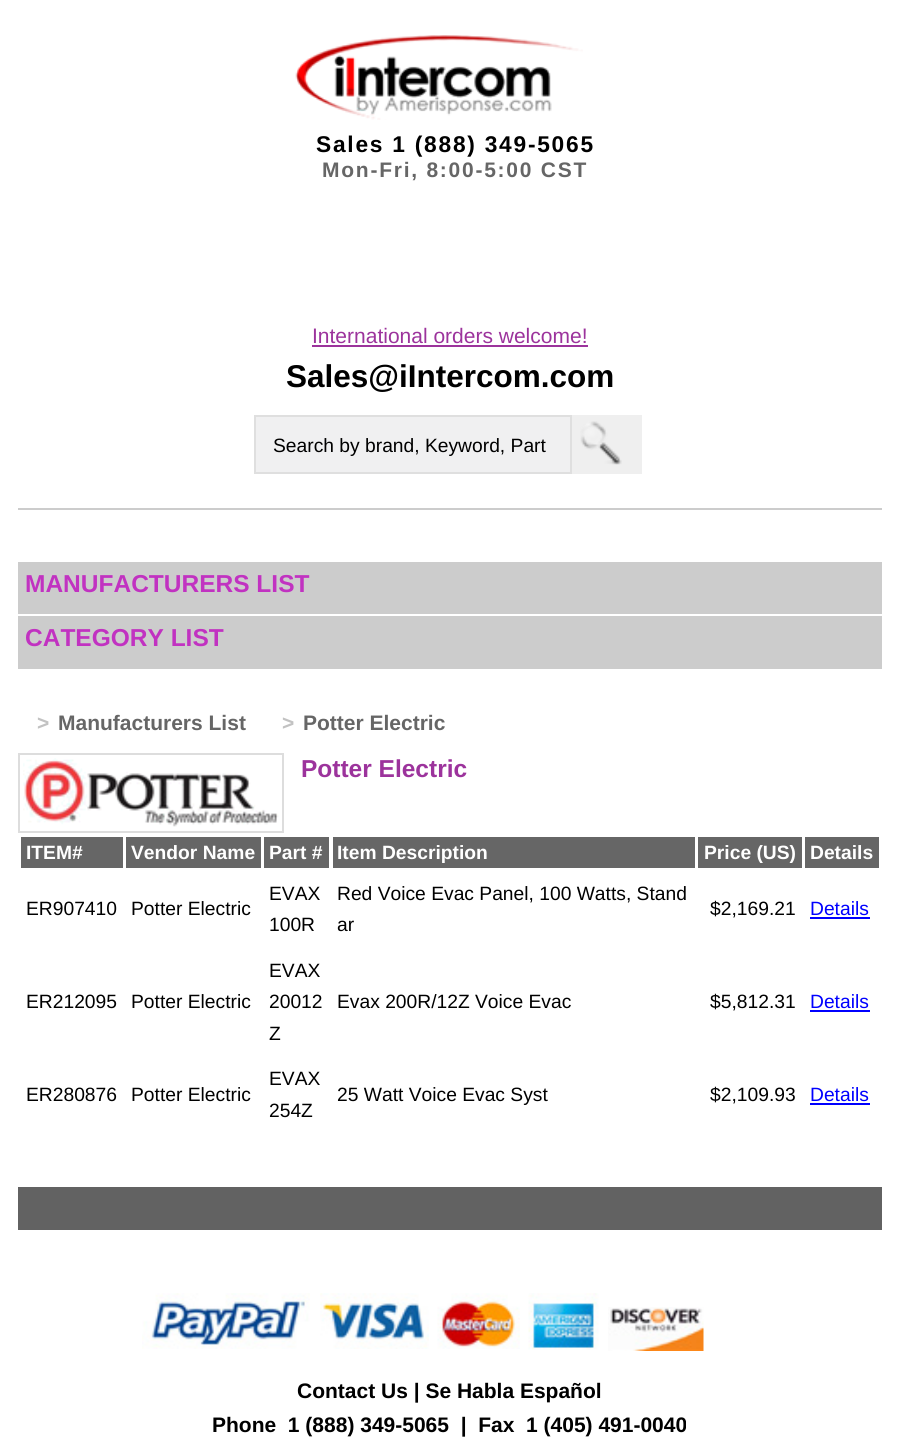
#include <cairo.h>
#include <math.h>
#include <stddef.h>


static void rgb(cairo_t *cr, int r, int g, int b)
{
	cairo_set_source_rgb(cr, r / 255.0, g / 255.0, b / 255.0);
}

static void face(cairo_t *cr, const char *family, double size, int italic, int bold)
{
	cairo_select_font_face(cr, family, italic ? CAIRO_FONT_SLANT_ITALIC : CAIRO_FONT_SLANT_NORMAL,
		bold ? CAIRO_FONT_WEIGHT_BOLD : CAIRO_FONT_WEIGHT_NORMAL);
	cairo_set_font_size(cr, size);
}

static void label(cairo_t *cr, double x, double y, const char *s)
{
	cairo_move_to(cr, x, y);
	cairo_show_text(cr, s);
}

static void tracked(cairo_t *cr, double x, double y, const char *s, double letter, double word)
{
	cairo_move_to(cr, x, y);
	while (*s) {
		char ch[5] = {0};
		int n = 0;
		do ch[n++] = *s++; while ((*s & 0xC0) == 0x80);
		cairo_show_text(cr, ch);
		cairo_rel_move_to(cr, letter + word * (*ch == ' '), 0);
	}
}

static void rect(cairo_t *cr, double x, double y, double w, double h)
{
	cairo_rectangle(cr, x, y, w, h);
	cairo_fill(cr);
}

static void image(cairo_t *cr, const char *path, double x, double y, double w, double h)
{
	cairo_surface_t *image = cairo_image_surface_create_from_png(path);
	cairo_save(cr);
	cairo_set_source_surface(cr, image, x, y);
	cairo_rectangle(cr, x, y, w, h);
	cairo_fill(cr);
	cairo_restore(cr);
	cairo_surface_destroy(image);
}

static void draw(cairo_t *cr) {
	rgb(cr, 255, 255, 255);
	cairo_paint(cr);
	rgb(cr, 204, 204, 204);
	rect(cr, 18, 508, 864, 2);
	image(cr, "image0.png", 295, 35, 288, 85);
	face(cr, "Liberation Sans", 22.75, 0, 1);
	rgb(cr, 0, 0, 0);
	tracked(cr, 316, 152, "Sales 1 (888) 349-5065", 1.75, 0);
	face(cr, "Liberation Sans", 21, 0, 1);
	rgb(cr, 102, 102, 102);
	tracked(cr, 322, 177, "Mon-Fri, 8:00-5:00 CST", 1.75, 0);
	face(cr, "Liberation Sans", 21, 0, 0);
	rgb(cr, 156, 51, 156);
	label(cr, 312, 343, "International orders welcome!");
	rect(cr, 312, 345, 276, 2);
	face(cr, "Liberation Sans", 31.5, 0, 1);
	rgb(cr, 0, 0, 0);
	label(cr, 286, 387, "Sales@iIntercom.com");
	rgb(cr, 240, 240, 241);
	cairo_rectangle(cr, 255, 416, 316, 57);
	cairo_fill_preserve(cr);
	rgb(cr, 223, 223, 223);
	cairo_stroke(cr);
	face(cr, "Liberation Sans", 19.25, 0, 0);
	rgb(cr, 0, 0, 0);
	label(cr, 273, 452, "Search by brand, Keyword, Part");
	rgb(cr, 239, 239, 239);
	rect(cr, 572, 415, 70, 59);
	image(cr, "image1.png", 580, 421, 42, 44);
	rgb(cr, 204, 204, 204);
	rect(cr, 18, 562, 864, 52);
	face(cr, "Liberation Sans", 24.5, 0, 1);
	rgb(cr, 193, 50, 193);
	label(cr, 25, 592, "MANUFACTURERS LIST");
	rgb(cr, 204, 204, 204);
	rect(cr, 18, 616, 864, 53);
	rgb(cr, 193, 50, 193);
	label(cr, 25, 646, "CATEGORY LIST");
	face(cr, "Liberation Sans", 21, 0, 1);
	rgb(cr, 194, 194, 194);
	label(cr, 37, 730, ">");
	rgb(cr, 102, 102, 102);
	label(cr, 58, 730, "Manufacturers List");
	rgb(cr, 194, 194, 194);
	label(cr, 282, 730, ">");
	rgb(cr, 102, 102, 102);
	label(cr, 303, 730, "Potter Electric");
	cairo_rectangle(cr, 19, 754, 264, 78);
	rgb(cr, 221, 221, 221);
	cairo_stroke(cr);
	image(cr, "image2.png", 23, 758, 256, 69);
	face(cr, "Liberation Sans", 24.5, 0, 1);
	rgb(cr, 156, 51, 156);
	label(cr, 301, 777, "Potter Electric");
	rgb(cr, 102, 102, 102);
	rect(cr, 21, 837, 102, 31);
	face(cr, "Liberation Sans", 19.25, 0, 1);
	rgb(cr, 255, 255, 255);
	label(cr, 26, 859, "ITEM#");
	rgb(cr, 102, 102, 102);
	rect(cr, 126, 837, 135, 31);
	rgb(cr, 255, 255, 255);
	label(cr, 131, 859, "Vendor Name");
	rgb(cr, 102, 102, 102);
	rect(cr, 264, 837, 65, 31);
	rgb(cr, 255, 255, 255);
	label(cr, 269, 859, "Part #");
	rgb(cr, 102, 102, 102);
	rect(cr, 333, 837, 362, 31);
	rgb(cr, 255, 255, 255);
	label(cr, 337, 859, "Item Description");
	rgb(cr, 102, 102, 102);
	rect(cr, 698, 837, 104, 31);
	rgb(cr, 255, 255, 255);
	label(cr, 704, 859, "Price (US)");
	rgb(cr, 102, 102, 102);
	rect(cr, 805, 837, 74, 31);
	rgb(cr, 255, 255, 255);
	label(cr, 810, 859, "Details");
	face(cr, "Liberation Sans", 19.25, 0, 0);
	rgb(cr, 0, 0, 0);
	label(cr, 26, 915, "ER907410");
	label(cr, 131, 915, "Potter Electric");
	label(cr, 269, 900, "EVAX");
	label(cr, 269, 931, "100R");
	label(cr, 337, 900, "Red Voice Evac Panel, 100 Watts, Stand");
	label(cr, 337, 931, "ar");
	label(cr, 710, 915, "$2,169.21");
	rgb(cr, 0, 0, 255);
	label(cr, 810, 915, "Details");
	rect(cr, 810, 917, 60, 2);
	rgb(cr, 0, 0, 0);
	label(cr, 26, 1008, "ER212095");
	label(cr, 131, 1008, "Potter Electric");
	label(cr, 269, 977, "EVAX");
	label(cr, 269, 1008, "20012");
	label(cr, 269, 1040, "Z");
	label(cr, 337, 1008, "Evax 200R/12Z Voice Evac");
	label(cr, 710, 1008, "$5,812.31");
	rgb(cr, 0, 0, 255);
	label(cr, 810, 1008, "Details");
	rect(cr, 810, 1010, 60, 2);
	rgb(cr, 0, 0, 0);
	label(cr, 26, 1101, "ER280876");
	label(cr, 131, 1101, "Potter Electric");
	label(cr, 269, 1085, "EVAX");
	label(cr, 269, 1117, "254Z");
	label(cr, 337, 1101, "25 Watt Voice Evac Syst");
	label(cr, 710, 1101, "$2,109.93");
	rgb(cr, 0, 0, 255);
	label(cr, 810, 1101, "Details");
	rect(cr, 810, 1103, 60, 2);
	rgb(cr, 98, 98, 98);
	rect(cr, 18, 1187, 864, 43);
	image(cr, "image3.png", 142, 1293, 168, 56);
	image(cr, "image4.png", 320, 1293, 109, 56);
	image(cr, "image5.png", 437, 1293, 83, 56);
	image(cr, "image6.png", 528, 1293, 71, 57);
	image(cr, "image7.png", 608, 1307, 96, 44);
	face(cr, "Liberation Sans", 21, 0, 1);
	rgb(cr, 0, 0, 0);
	label(cr, 297, 1398, "Contact Us | Se Habla Español");
	label(cr, 212, 1432, "Phone  1 (888) 349-5065  |  Fax  1 (405) 491-0040");
}

int main(void) {
	cairo_surface_t *surface = cairo_image_surface_create(CAIRO_FORMAT_RGB24, 899, 1446);
	cairo_t *cr = cairo_create(surface);
	cairo_font_options_t *options = cairo_font_options_create();
	cairo_font_options_set_hint_metrics(options, CAIRO_HINT_METRICS_OFF);
	cairo_font_options_set_hint_style(options, CAIRO_HINT_STYLE_NONE);
	cairo_set_font_options(cr, options);
	cairo_set_miter_limit(cr, 4);
	draw(cr);
	cairo_surface_write_to_png(surface, "render.png");
	cairo_font_options_destroy(options);
	cairo_destroy(cr);
	cairo_surface_destroy(surface);
	return 0;
}
